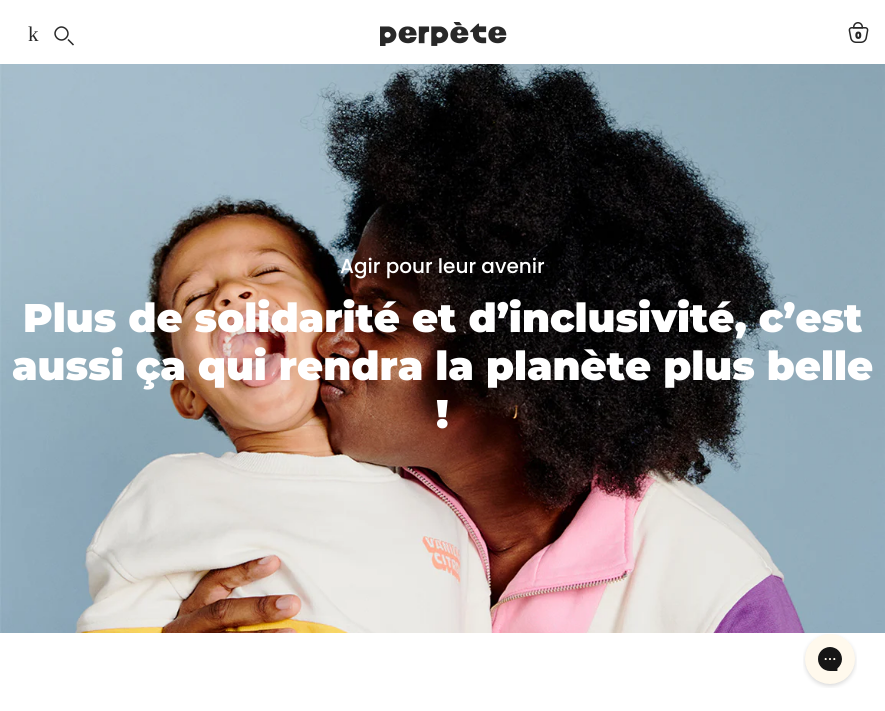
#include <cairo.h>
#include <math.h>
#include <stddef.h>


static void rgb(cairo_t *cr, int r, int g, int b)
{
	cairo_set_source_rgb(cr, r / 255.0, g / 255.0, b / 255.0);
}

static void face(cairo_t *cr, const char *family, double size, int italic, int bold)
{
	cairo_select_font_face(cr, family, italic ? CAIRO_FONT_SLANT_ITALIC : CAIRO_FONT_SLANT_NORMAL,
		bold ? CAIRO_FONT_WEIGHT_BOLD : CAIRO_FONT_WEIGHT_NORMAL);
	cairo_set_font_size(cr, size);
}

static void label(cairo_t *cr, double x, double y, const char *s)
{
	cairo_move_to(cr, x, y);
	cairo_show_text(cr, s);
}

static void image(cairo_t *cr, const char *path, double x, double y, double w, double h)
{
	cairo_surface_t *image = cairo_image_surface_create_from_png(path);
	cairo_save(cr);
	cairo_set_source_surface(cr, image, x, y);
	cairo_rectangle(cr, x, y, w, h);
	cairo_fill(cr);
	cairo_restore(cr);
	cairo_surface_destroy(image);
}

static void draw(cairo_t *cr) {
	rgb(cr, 255, 255, 255);
	cairo_paint(cr);
	face(cr, "Liberation Serif", 21, 0, 0);
	rgb(cr, 40, 40, 40);
	label(cr, 28, 41, "k");
	cairo_new_path(cr);
	cairo_move_to(cr, 57, 29);
	cairo_curve_to(cr, 63, 23, 72, 32, 66, 38);
	cairo_curve_to(cr, 60, 44, 51, 35, 57, 29);
	cairo_close_path(cr);
	cairo_move_to(cr, 68, 39.5);
	cairo_line_to(cr, 73.5, 45);
	cairo_set_line_width(cr, 1.5);
	cairo_stroke(cr);
	image(cr, "image0.png", 380, 22, 127, 24);
	image(cr, "image1.png", 848, 22, 21, 21);
	face(cr, "Poppins Black", 10, 0, 0);
	label(cr, 855, 39, "0");
	image(cr, "image2.png", 0, 64, 885, 569);
	face(cr, "Poppins Medium", 20, 0, 0);
	rgb(cr, 255, 255, 255);
	label(cr, 340, 273, "Agir pour leur avenir");
	face(cr, "Montserrat Black", 40, 0, 0);
	label(cr, 23, 332, "Plus de solidarité et d’inclusivité, c’est");
	label(cr, 12, 380, "aussi ça qui rendra la planète plus belle");
	label(cr, 436, 428, "!");
	image(cr, "image3.png", 803, 634, 54, 54);
}

int main(void) {
	cairo_surface_t *surface = cairo_image_surface_create(CAIRO_FORMAT_RGB24, 885, 711);
	cairo_t *cr = cairo_create(surface);
	cairo_font_options_t *options = cairo_font_options_create();
	cairo_font_options_set_hint_metrics(options, CAIRO_HINT_METRICS_OFF);
	cairo_font_options_set_hint_style(options, CAIRO_HINT_STYLE_NONE);
	cairo_set_font_options(cr, options);
	cairo_set_miter_limit(cr, 4);
	draw(cr);
	cairo_surface_write_to_png(surface, "render.png");
	cairo_font_options_destroy(options);
	cairo_destroy(cr);
	cairo_surface_destroy(surface);
	return 0;
}
